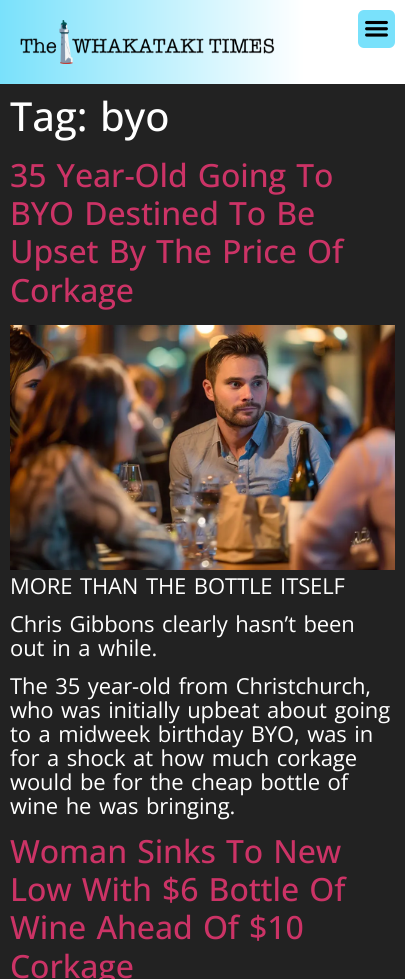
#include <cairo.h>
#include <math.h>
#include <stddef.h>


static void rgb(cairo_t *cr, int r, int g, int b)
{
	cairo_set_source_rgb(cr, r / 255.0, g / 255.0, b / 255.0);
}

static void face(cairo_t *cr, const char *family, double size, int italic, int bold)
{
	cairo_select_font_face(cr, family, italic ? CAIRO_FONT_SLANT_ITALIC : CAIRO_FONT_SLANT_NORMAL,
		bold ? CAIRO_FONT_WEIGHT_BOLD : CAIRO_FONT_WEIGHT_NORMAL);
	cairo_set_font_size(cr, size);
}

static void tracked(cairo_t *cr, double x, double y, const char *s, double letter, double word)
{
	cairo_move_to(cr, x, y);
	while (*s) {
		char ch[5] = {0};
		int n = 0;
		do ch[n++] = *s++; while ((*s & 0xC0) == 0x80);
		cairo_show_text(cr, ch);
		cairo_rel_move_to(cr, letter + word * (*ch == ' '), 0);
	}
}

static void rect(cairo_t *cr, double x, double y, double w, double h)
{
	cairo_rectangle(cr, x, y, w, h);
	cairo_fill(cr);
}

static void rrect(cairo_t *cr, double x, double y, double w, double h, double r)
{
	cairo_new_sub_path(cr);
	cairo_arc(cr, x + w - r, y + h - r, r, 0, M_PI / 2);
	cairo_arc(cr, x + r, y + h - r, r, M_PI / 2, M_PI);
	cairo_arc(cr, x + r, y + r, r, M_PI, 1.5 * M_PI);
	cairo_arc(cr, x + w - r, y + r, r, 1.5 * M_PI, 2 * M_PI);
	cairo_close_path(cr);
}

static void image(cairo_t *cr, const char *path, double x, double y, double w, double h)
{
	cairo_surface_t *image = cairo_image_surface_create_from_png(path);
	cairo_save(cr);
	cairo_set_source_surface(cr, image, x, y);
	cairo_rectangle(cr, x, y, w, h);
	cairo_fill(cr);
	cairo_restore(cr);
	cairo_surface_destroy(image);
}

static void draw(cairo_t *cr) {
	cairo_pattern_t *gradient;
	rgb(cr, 34, 34, 34);
	cairo_paint(cr);
	gradient = cairo_pattern_create_linear(0, 42, 405, 42);
	cairo_pattern_add_color_stop_rgba(gradient, 0, 0.475, 0.882, 0.984, 1);
	cairo_pattern_add_color_stop_rgba(gradient, 0.75, 1, 1, 1, 1);
	cairo_set_source(cr, gradient);
	cairo_pattern_destroy(gradient);
	rect(cr, 0, 0, 405, 84);
	image(cr, "image0.png", 20, 20, 255, 44);
	rgb(cr, 121, 225, 251);
	rrect(cr, 358, 10, 37, 38, 6);
	cairo_fill(cr);
	image(cr, "image1.png", 365, 20, 23, 17);
	face(cr, "Open Sans Medium", 40, 0, 0);
	rgb(cr, 255, 255, 255);
	tracked(cr, 10, 131, "Tag:", -0.1, 0);
	tracked(cr, 100, 131, "byo", -0.1, 0);
	face(cr, "Open Sans Medium", 32, 0, 0);
	rgb(cr, 204, 51, 102);
	tracked(cr, 10, 187, "35 Year-Old Going To", -0.1, 2);
	tracked(cr, 10, 225, "BYO Destined To Be", -0.1, 2);
	tracked(cr, 10, 263, "Upset By The Price Of", -0.1, 2);
	tracked(cr, 10, 302, "Corkage", -0.1, 0);
	image(cr, "image2.png", 10, 325, 385, 245);
	face(cr, "Open Sans", 22, 0, 0);
	rgb(cr, 255, 255, 255);
	tracked(cr, 10, 594, "MORE THAN THE BOTTLE ITSELF", -0.1, 2);
	tracked(cr, 10, 632, "Chris Gibbons clearly hasn’t been", -0.1, 2);
	tracked(cr, 10, 656, "out in a while.", -0.1, 2);
	tracked(cr, 10, 694, "The 35 year-old from Christchurch,", -0.1, 2);
	tracked(cr, 10, 718, "who was initially upbeat about going", -0.1, 2);
	tracked(cr, 10, 742, "to a midweek birthday BYO, was in", -0.1, 2);
	tracked(cr, 10, 766, "for a shock at how much corkage", -0.1, 2);
	tracked(cr, 10, 790, "would be for the cheap bottle of", -0.1, 2);
	tracked(cr, 10, 814, "wine he was bringing.", -0.1, 2);
	face(cr, "Open Sans Medium", 32, 0, 0);
	rgb(cr, 204, 51, 102);
	tracked(cr, 10, 863, "Woman Sinks To New", -0.1, 2);
	tracked(cr, 10, 901, "Low With $6 Bottle Of", -0.1, 2);
	tracked(cr, 10, 939, "Wine Ahead Of $10", -0.1, 2);
	tracked(cr, 10, 978, "Corkage", -0.1, 0);
}

int main(void) {
	cairo_surface_t *surface = cairo_image_surface_create(CAIRO_FORMAT_RGB24, 405, 979);
	cairo_t *cr = cairo_create(surface);
	cairo_font_options_t *options = cairo_font_options_create();
	cairo_font_options_set_hint_metrics(options, CAIRO_HINT_METRICS_OFF);
	cairo_font_options_set_hint_style(options, CAIRO_HINT_STYLE_NONE);
	cairo_set_font_options(cr, options);
	cairo_set_miter_limit(cr, 4);
	draw(cr);
	cairo_surface_write_to_png(surface, "render.png");
	cairo_font_options_destroy(options);
	cairo_destroy(cr);
	cairo_surface_destroy(surface);
	return 0;
}
